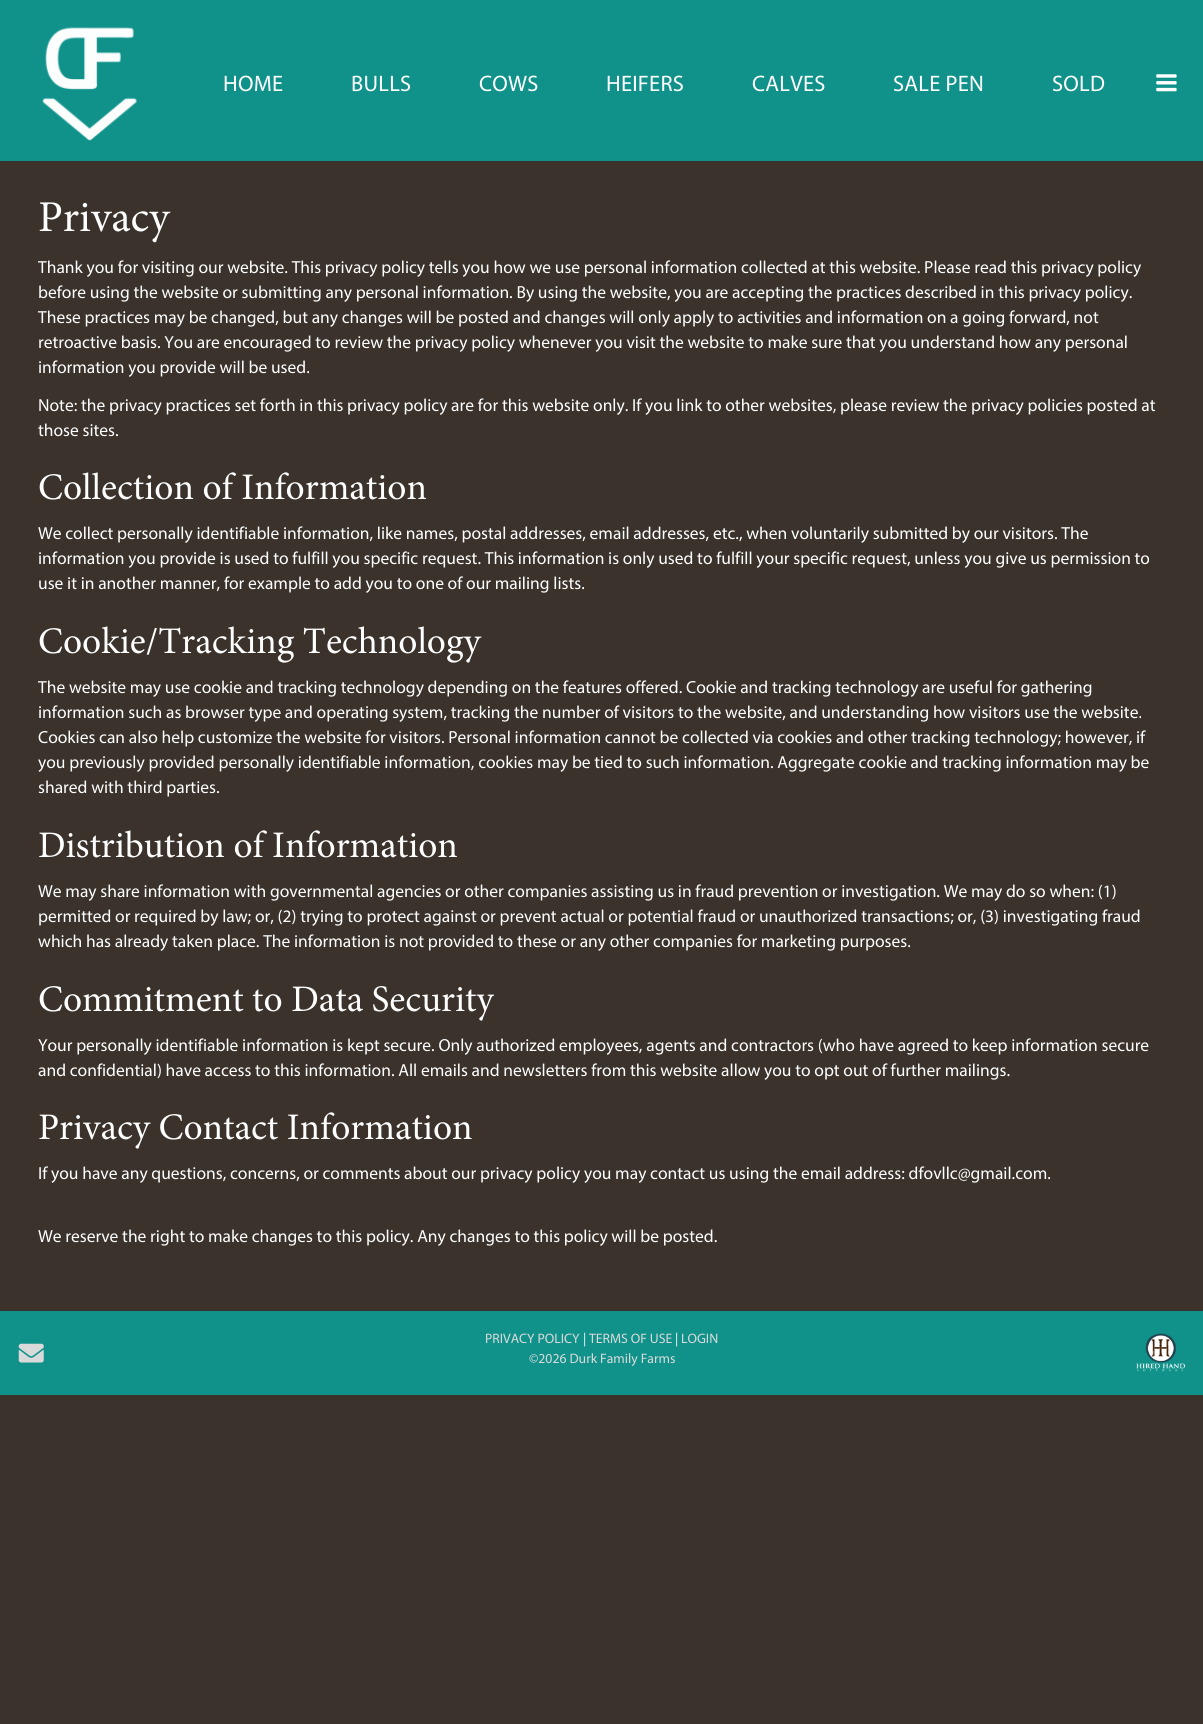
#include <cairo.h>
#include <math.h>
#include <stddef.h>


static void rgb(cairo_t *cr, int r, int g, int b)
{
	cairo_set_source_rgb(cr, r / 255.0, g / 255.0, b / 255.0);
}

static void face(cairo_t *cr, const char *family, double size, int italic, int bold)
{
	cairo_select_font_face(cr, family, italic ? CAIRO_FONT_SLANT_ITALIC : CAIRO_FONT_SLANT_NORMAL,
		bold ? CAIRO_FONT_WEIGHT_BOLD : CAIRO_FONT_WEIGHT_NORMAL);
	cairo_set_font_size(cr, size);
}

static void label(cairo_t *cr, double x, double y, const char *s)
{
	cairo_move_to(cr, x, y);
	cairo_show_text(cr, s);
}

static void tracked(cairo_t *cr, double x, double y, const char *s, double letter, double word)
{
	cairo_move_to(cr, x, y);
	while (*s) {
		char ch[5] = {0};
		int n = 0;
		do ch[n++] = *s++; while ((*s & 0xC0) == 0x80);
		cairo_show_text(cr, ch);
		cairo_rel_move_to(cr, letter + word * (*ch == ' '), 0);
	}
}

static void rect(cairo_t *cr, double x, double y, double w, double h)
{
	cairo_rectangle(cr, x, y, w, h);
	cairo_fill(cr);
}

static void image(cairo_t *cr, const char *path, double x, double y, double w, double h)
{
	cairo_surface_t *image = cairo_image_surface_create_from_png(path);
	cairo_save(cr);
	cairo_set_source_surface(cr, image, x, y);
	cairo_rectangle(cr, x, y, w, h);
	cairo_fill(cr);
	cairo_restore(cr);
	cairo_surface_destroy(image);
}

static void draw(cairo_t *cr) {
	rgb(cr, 58, 50, 43);
	cairo_paint(cr);
	rgb(cr, 16, 146, 139);
	rect(cr, 0, 0, 1203, 161);
	image(cr, "image0.png", 42, 27, 95, 114);
	face(cr, "Myriad", 22.5, 0, 0);
	rgb(cr, 255, 255, 255);
	tracked(cr, 223, 91, "HOME", 0.25, 0);
	tracked(cr, 351, 91, "BULLS", 0.25, 0);
	tracked(cr, 479, 91, "COWS", 0.25, 0);
	tracked(cr, 606, 91, "HEIFERS", 0.25, 0);
	tracked(cr, 752, 91, "CALVES", 0.25, 0);
	tracked(cr, 893, 91, "SALE PEN", 0.25, 0);
	tracked(cr, 1052, 91, "SOLD", 0.25, 0);
	image(cr, "image1.png", 1156, 74, 21, 18);
	face(cr, "Minion", 44, 0, 0);
	label(cr, 38, 231, "Privacy");
	face(cr, "Myriad", 17.5, 0, 0);
	label(cr, 38, 273, "Thank you for visiting our website. This privacy policy tells you how we use personal information collected at this website. Please read this privacy policy");
	label(cr, 38, 298, "before using the website or submitting any personal information. By using the website, you are accepting the practices described in this privacy policy.");
	label(cr, 38, 323, "These practices may be changed, but any changes will be posted and changes will only apply to activities and information on a going forward, not");
	label(cr, 38, 348, "retroactive basis. You are encouraged to review the privacy policy whenever you visit the website to make sure that you understand how any personal");
	label(cr, 38, 373, "information you provide will be used.");
	label(cr, 38, 411, "Note: the privacy practices set forth in this privacy policy are for this website only. If you link to other websites, please review the privacy policies posted at");
	label(cr, 38, 436, "those sites.");
	face(cr, "Minion", 37.5, 0, 0);
	label(cr, 38, 499, "Collection of Information");
	face(cr, "Myriad", 17.5, 0, 0);
	label(cr, 38, 539, "We collect personally identifiable information, like names, postal addresses, email addresses, etc., when voluntarily submitted by our visitors. The");
	label(cr, 38, 564, "information you provide is used to fulfill you specific request. This information is only used to fulfill your specific request, unless you give us permission to");
	label(cr, 38, 589, "use it in another manner, for example to add you to one of our mailing lists.");
	face(cr, "Minion", 37.5, 0, 0);
	label(cr, 38, 653, "Cookie/Tracking Technology");
	face(cr, "Myriad", 17.5, 0, 0);
	label(cr, 38, 693, "The website may use cookie and tracking technology depending on the features offered. Cookie and tracking technology are useful for gathering");
	label(cr, 38, 718, "information such as browser type and operating system, tracking the number of visitors to the website, and understanding how visitors use the website.");
	label(cr, 38, 743, "Cookies can also help customize the website for visitors. Personal information cannot be collected via cookies and other tracking technology; however, if");
	label(cr, 38, 768, "you previously provided personally identifiable information, cookies may be tied to such information. Aggregate cookie and tracking information may be");
	label(cr, 38, 793, "shared with third parties.");
	face(cr, "Minion", 37.5, 0, 0);
	label(cr, 38, 857, "Distribution of Information");
	face(cr, "Myriad", 17.5, 0, 0);
	label(cr, 38, 897, "We may share information with governmental agencies or other companies assisting us in fraud prevention or investigation. We may do so when: (1)");
	label(cr, 38, 922, "permitted or required by law; or, (2) trying to protect against or prevent actual or potential fraud or unauthorized transactions; or, (3) investigating fraud");
	label(cr, 38, 947, "which has already taken place. The information is not provided to these or any other companies for marketing purposes.");
	face(cr, "Minion", 37.5, 0, 0);
	label(cr, 38, 1011, "Commitment to Data Security");
	face(cr, "Myriad", 17.5, 0, 0);
	label(cr, 38, 1051, "Your personally identifiable information is kept secure. Only authorized employees, agents and contractors (who have agreed to keep information secure");
	label(cr, 38, 1076, "and confidential) have access to this information. All emails and newsletters from this website allow you to opt out of further mailings.");
	face(cr, "Minion", 37.5, 0, 0);
	label(cr, 38, 1139, "Privacy Contact Information");
	face(cr, "Myriad", 17.5, 0, 0);
	label(cr, 38, 1179, "If you have any questions, concerns, or comments about our privacy policy you may contact us using the email address: dfovllc@gmail.com.");
	label(cr, 38, 1242, "We reserve the right to make changes to this policy. Any changes to this policy will be posted.");
	rgb(cr, 16, 146, 139);
	rect(cr, 0, 1311, 1203, 84);
	image(cr, "image2.png", 18, 1343, 26, 20);
	face(cr, "Myriad", 13.75, 0, 0);
	rgb(cr, 218, 218, 218);
	label(cr, 485, 1343, "PRIVACY POLICY");
	rgb(cr, 235, 245, 247);
	label(cr, 583, 1343, "|");
	rgb(cr, 218, 218, 218);
	label(cr, 589, 1343, "TERMS OF USE");
	rgb(cr, 235, 245, 247);
	label(cr, 675, 1343, "|");
	rgb(cr, 218, 218, 218);
	label(cr, 681, 1343, "LOGIN");
	label(cr, 529, 1363, "©2026 Durk Family Farms");
	image(cr, "image3.png", 1136, 1333, 49, 39);
}

int main(void) {
	cairo_surface_t *surface = cairo_image_surface_create(CAIRO_FORMAT_RGB24, 1203, 1724);
	cairo_t *cr = cairo_create(surface);
	cairo_font_options_t *options = cairo_font_options_create();
	cairo_font_options_set_hint_metrics(options, CAIRO_HINT_METRICS_OFF);
	cairo_font_options_set_hint_style(options, CAIRO_HINT_STYLE_NONE);
	cairo_set_font_options(cr, options);
	cairo_set_miter_limit(cr, 4);
	draw(cr);
	cairo_surface_write_to_png(surface, "render.png");
	cairo_font_options_destroy(options);
	cairo_destroy(cr);
	cairo_surface_destroy(surface);
	return 0;
}
